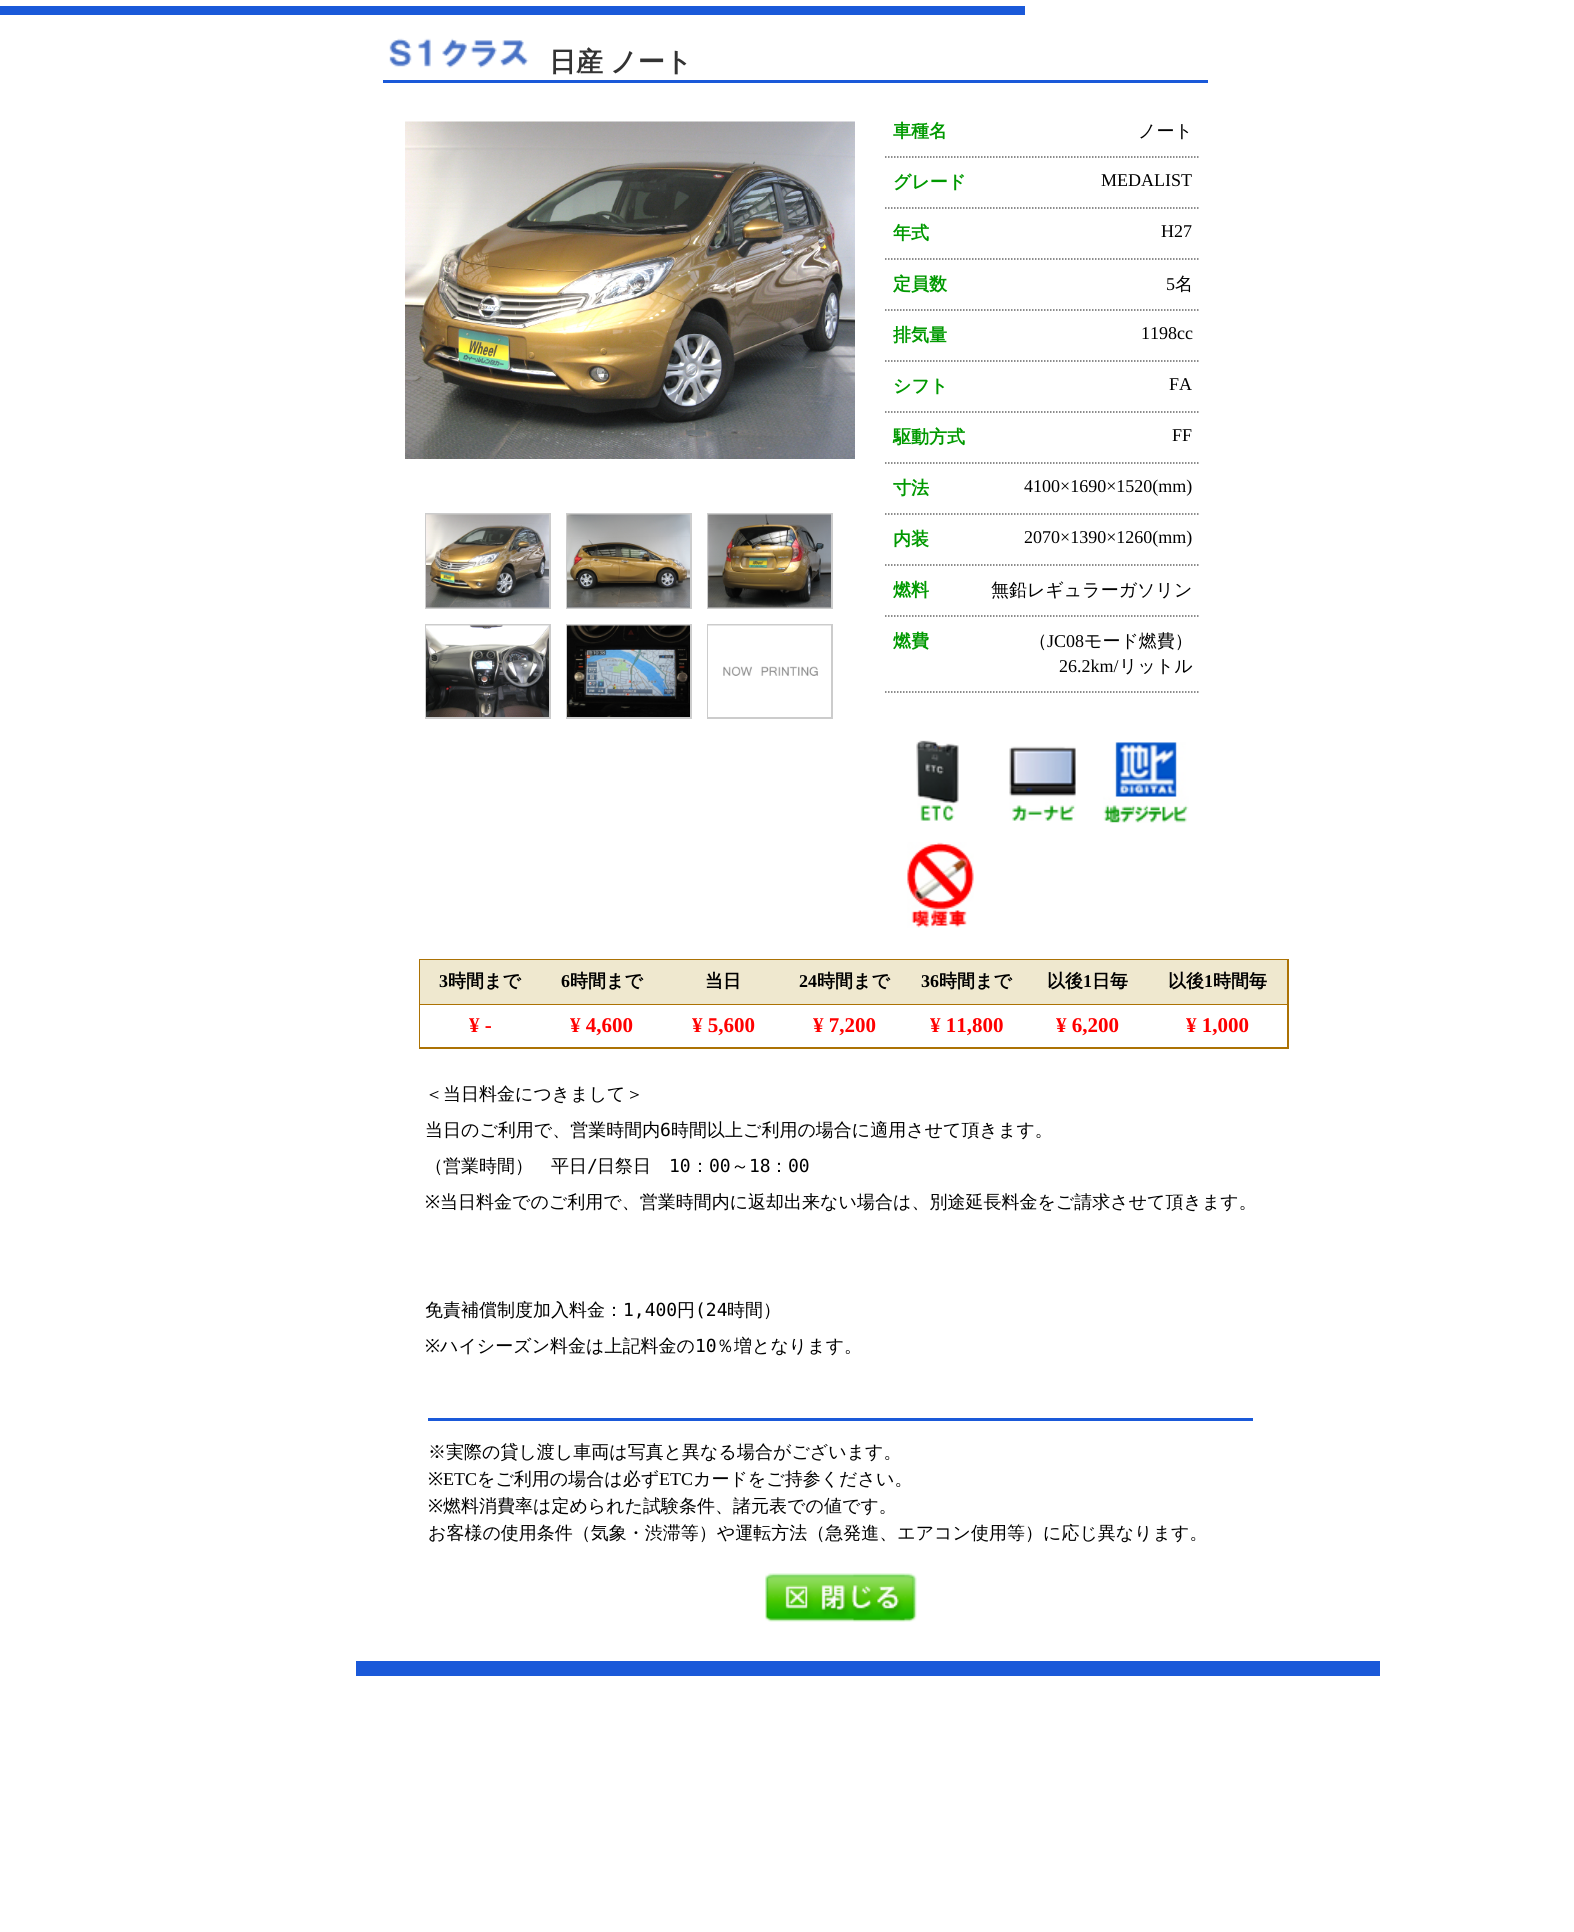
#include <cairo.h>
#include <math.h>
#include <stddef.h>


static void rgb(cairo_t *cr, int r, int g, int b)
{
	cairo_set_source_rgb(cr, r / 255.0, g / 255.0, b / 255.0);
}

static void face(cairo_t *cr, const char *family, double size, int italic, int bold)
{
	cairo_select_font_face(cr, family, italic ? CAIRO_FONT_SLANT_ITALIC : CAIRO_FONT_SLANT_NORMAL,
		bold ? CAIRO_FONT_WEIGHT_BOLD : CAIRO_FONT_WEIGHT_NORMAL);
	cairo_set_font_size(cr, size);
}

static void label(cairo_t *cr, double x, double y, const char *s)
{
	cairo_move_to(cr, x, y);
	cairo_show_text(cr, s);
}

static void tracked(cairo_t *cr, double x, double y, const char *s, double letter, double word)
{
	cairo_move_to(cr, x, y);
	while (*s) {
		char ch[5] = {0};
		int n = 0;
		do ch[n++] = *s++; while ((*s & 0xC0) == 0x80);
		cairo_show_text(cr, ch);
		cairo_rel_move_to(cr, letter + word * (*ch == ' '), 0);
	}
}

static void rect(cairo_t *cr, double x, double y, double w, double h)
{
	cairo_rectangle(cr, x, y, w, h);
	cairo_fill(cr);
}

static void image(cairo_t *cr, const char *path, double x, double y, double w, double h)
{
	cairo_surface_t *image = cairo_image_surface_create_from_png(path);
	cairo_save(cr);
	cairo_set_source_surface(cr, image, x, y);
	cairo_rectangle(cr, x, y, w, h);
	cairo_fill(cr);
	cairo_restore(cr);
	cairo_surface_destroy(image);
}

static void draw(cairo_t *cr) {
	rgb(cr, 255, 255, 255);
	cairo_paint(cr);
	rgb(cr, 26, 89, 217);
	rect(cr, 0, 6, 1025, 9);
	rect(cr, 383, 80, 825, 3);
	image(cr, "image0.png", 389, 38, 140, 30);
	face(cr, "WenQuanYi Zen Hei", 27, 0, 1);
	rgb(cr, 51, 51, 51);
	tracked(cr, 549, 71, "日産 ノート", 0, -1);
	image(cr, "image1.png", 405, 121, 450, 338);
	cairo_rectangle(cr, 426, 514, 124, 94);
	rgb(cr, 204, 204, 204);
	cairo_stroke(cr);
	image(cr, "image2.png", 426, 514, 123, 94);
	cairo_rectangle(cr, 567, 514, 124, 94);
	cairo_stroke(cr);
	image(cr, "image3.png", 567, 514, 123, 94);
	cairo_rectangle(cr, 708, 514, 124, 94);
	cairo_stroke(cr);
	image(cr, "image4.png", 708, 514, 123, 94);
	cairo_rectangle(cr, 426, 625, 124, 93);
	cairo_stroke(cr);
	image(cr, "image5.png", 426, 625, 123, 92);
	cairo_rectangle(cr, 567, 625, 124, 93);
	cairo_stroke(cr);
	image(cr, "image6.png", 567, 625, 123, 92);
	cairo_rectangle(cr, 708, 625, 124, 93);
	cairo_stroke(cr);
	image(cr, "image7.png", 708, 625, 123, 92);
	cairo_new_path(cr);
	cairo_move_to(cr, 885, 157);
	cairo_line_to(cr, 1200, 157);
	rgb(cr, 102, 102, 102);
	cairo_set_line_width(cr, 1.5);
	cairo_set_dash(cr, (double[]){1.5, 1.5}, 2, 0);
	cairo_stroke(cr);
	face(cr, "WenQuanYi Zen Hei", 18, 0, 1);
	rgb(cr, 0, 153, 0);
	label(cr, 893, 137, "車種名");
	face(cr, "WenQuanYi Zen Hei Medium", 18, 0, 0);
	rgb(cr, 0, 0, 0);
	label(cr, 1138, 137, "ノート");
	cairo_new_path(cr);
	cairo_move_to(cr, 885, 208);
	cairo_line_to(cr, 1200, 208);
	rgb(cr, 102, 102, 102);
	cairo_stroke(cr);
	face(cr, "WenQuanYi Zen Hei", 18, 0, 1);
	rgb(cr, 0, 153, 0);
	label(cr, 893, 188, "グレード");
	face(cr, "Liberation Serif", 18, 0, 0);
	rgb(cr, 0, 0, 0);
	label(cr, 1101, 186, "MEDALIST");
	cairo_new_path(cr);
	cairo_move_to(cr, 885, 259);
	cairo_line_to(cr, 1200, 259);
	rgb(cr, 102, 102, 102);
	cairo_stroke(cr);
	face(cr, "WenQuanYi Zen Hei", 18, 0, 1);
	rgb(cr, 0, 153, 0);
	label(cr, 893, 239, "年式");
	face(cr, "Liberation Serif", 18, 0, 0);
	rgb(cr, 0, 0, 0);
	label(cr, 1161, 237, "H27");
	cairo_new_path(cr);
	cairo_move_to(cr, 885, 310);
	cairo_line_to(cr, 1200, 310);
	rgb(cr, 102, 102, 102);
	cairo_stroke(cr);
	face(cr, "WenQuanYi Zen Hei", 18, 0, 1);
	rgb(cr, 0, 153, 0);
	label(cr, 893, 290, "定員数");
	face(cr, "Liberation Serif", 18, 0, 0);
	rgb(cr, 0, 0, 0);
	label(cr, 1166, 290, "5");
	face(cr, "WenQuanYi Zen Hei Medium", 18, 0, 0);
	label(cr, 1175, 290, "名");
	cairo_new_path(cr);
	cairo_move_to(cr, 885, 361);
	cairo_line_to(cr, 1200, 361);
	rgb(cr, 102, 102, 102);
	cairo_stroke(cr);
	face(cr, "WenQuanYi Zen Hei", 18, 0, 1);
	rgb(cr, 0, 153, 0);
	label(cr, 893, 341, "排気量");
	face(cr, "Liberation Serif", 18, 0, 0);
	rgb(cr, 0, 0, 0);
	label(cr, 1141, 339, "1198cc");
	cairo_new_path(cr);
	cairo_move_to(cr, 885, 412);
	cairo_line_to(cr, 1200, 412);
	rgb(cr, 102, 102, 102);
	cairo_stroke(cr);
	face(cr, "WenQuanYi Zen Hei", 18, 0, 1);
	rgb(cr, 0, 153, 0);
	label(cr, 893, 392, "シフト");
	face(cr, "Liberation Serif", 18, 0, 0);
	rgb(cr, 0, 0, 0);
	label(cr, 1169, 390, "FA");
	cairo_new_path(cr);
	cairo_move_to(cr, 885, 463);
	cairo_line_to(cr, 1200, 463);
	rgb(cr, 102, 102, 102);
	cairo_stroke(cr);
	face(cr, "WenQuanYi Zen Hei", 18, 0, 1);
	rgb(cr, 0, 153, 0);
	label(cr, 893, 443, "駆動方式");
	face(cr, "Liberation Serif", 18, 0, 0);
	rgb(cr, 0, 0, 0);
	label(cr, 1172, 441, "FF");
	cairo_new_path(cr);
	cairo_move_to(cr, 885, 514);
	cairo_line_to(cr, 1200, 514);
	rgb(cr, 102, 102, 102);
	cairo_stroke(cr);
	face(cr, "WenQuanYi Zen Hei", 18, 0, 1);
	rgb(cr, 0, 153, 0);
	label(cr, 893, 494, "寸法");
	face(cr, "Liberation Serif", 18, 0, 0);
	rgb(cr, 0, 0, 0);
	label(cr, 1024, 492, "4100×1690×1520(mm)");
	cairo_new_path(cr);
	cairo_move_to(cr, 885, 565);
	cairo_line_to(cr, 1200, 565);
	rgb(cr, 102, 102, 102);
	cairo_stroke(cr);
	face(cr, "WenQuanYi Zen Hei", 18, 0, 1);
	rgb(cr, 0, 153, 0);
	label(cr, 893, 545, "内装");
	face(cr, "Liberation Serif", 18, 0, 0);
	rgb(cr, 0, 0, 0);
	label(cr, 1024, 543, "2070×1390×1260(mm)");
	cairo_new_path(cr);
	cairo_move_to(cr, 885, 616);
	cairo_line_to(cr, 1200, 616);
	rgb(cr, 102, 102, 102);
	cairo_stroke(cr);
	face(cr, "WenQuanYi Zen Hei", 18, 0, 1);
	rgb(cr, 0, 153, 0);
	label(cr, 893, 596, "燃料");
	face(cr, "WenQuanYi Zen Hei Medium", 18, 0, 0);
	rgb(cr, 0, 0, 0);
	label(cr, 991, 596, "無鉛レギュラーガソリン");
	cairo_new_path(cr);
	cairo_move_to(cr, 885, 692);
	cairo_line_to(cr, 1200, 692);
	rgb(cr, 102, 102, 102);
	cairo_stroke(cr);
	face(cr, "WenQuanYi Zen Hei", 18, 0, 1);
	rgb(cr, 0, 153, 0);
	label(cr, 893, 647, "燃費");
	face(cr, "WenQuanYi Zen Hei Medium", 18, 0, 0);
	rgb(cr, 0, 0, 0);
	label(cr, 1029, 647, "（");
	face(cr, "Liberation Serif", 18, 0, 0);
	label(cr, 1047, 647, "JC08");
	face(cr, "WenQuanYi Zen Hei Medium", 18, 0, 0);
	label(cr, 1084, 647, "モード燃費）");
	face(cr, "Liberation Serif", 18, 0, 0);
	label(cr, 1059, 672, "26.2km/");
	face(cr, "WenQuanYi Zen Hei Medium", 18, 0, 0);
	label(cr, 1119, 672, "リットル");
	image(cr, "image8.png", 916, 740, 43, 81);
	image(cr, "image9.png", 1009, 746, 67, 75);
	image(cr, "image10.png", 1103, 742, 86, 81);
	image(cr, "image11.png", 907, 842, 67, 86);
	rgb(cr, 172, 114, 4);
	rect(cr, 419, 959, 870, 90);
	rgb(cr, 239, 232, 207);
	rect(cr, 420, 960, 867, 44);
	face(cr, "Liberation Serif", 18, 0, 1);
	rgb(cr, 0, 0, 0);
	label(cr, 439, 987, "3");
	face(cr, "WenQuanYi Zen Hei", 18, 0, 1);
	label(cr, 448, 987, "時間まで");
	face(cr, "Liberation Serif", 18, 0, 1);
	label(cr, 561, 987, "6");
	face(cr, "WenQuanYi Zen Hei", 18, 0, 1);
	label(cr, 570, 987, "時間まで");
	label(cr, 705, 987, "当日");
	face(cr, "Liberation Serif", 18, 0, 1);
	label(cr, 799, 987, "24");
	face(cr, "WenQuanYi Zen Hei", 18, 0, 1);
	label(cr, 817, 987, "時間まで");
	face(cr, "Liberation Serif", 18, 0, 1);
	label(cr, 921, 987, "36");
	face(cr, "WenQuanYi Zen Hei", 18, 0, 1);
	label(cr, 939, 987, "時間まで");
	label(cr, 1047, 987, "以後");
	face(cr, "Liberation Serif", 18, 0, 1);
	label(cr, 1083, 987, "1");
	face(cr, "WenQuanYi Zen Hei", 18, 0, 1);
	label(cr, 1092, 987, "日毎");
	label(cr, 1168, 987, "以後");
	face(cr, "Liberation Serif", 18, 0, 1);
	label(cr, 1204, 987, "1");
	face(cr, "WenQuanYi Zen Hei", 18, 0, 1);
	label(cr, 1213, 987, "時間毎");
	rgb(cr, 255, 255, 255);
	rect(cr, 420, 1005, 867, 42);
	face(cr, "Liberation Serif", 21, 0, 1);
	rgb(cr, 255, 0, 0);
	label(cr, 469, 1032, "¥ -");
	label(cr, 570, 1032, "¥ 4,600");
	label(cr, 692, 1032, "¥ 5,600");
	label(cr, 813, 1032, "¥ 7,200");
	label(cr, 930, 1032, "¥ 11,800");
	label(cr, 1056, 1032, "¥ 6,200");
	label(cr, 1186, 1032, "¥ 1,000");
	face(cr, "WenQuanYi Zen Hei Medium", 18, 0, 0);
	rgb(cr, 0, 0, 0);
	label(cr, 425, 1100, "＜当日料金につきまして＞");
	label(cr, 425, 1136, "当日のご利用で、営業時間内");
	face(cr, "DejaVu Sans Mono", 18, 0, 0);
	label(cr, 660, 1136, "6");
	face(cr, "WenQuanYi Zen Hei Medium", 18, 0, 0);
	label(cr, 671, 1136, "時間以上ご利用の場合に適用させて頂きます。");
	label(cr, 425, 1172, "（営業時間）　平日");
	face(cr, "DejaVu Sans Mono", 18, 0, 0);
	label(cr, 587, 1172, "/");
	face(cr, "WenQuanYi Zen Hei Medium", 18, 0, 0);
	label(cr, 597, 1172, "日祭日");
	face(cr, "DejaVu Sans Mono", 18, 0, 0);
	label(cr, 669, 1172, "10");
	face(cr, "WenQuanYi Zen Hei Medium", 18, 0, 0);
	label(cr, 691, 1172, "：");
	face(cr, "DejaVu Sans Mono", 18, 0, 0);
	label(cr, 709, 1172, "00");
	face(cr, "WenQuanYi Zen Hei Medium", 18, 0, 0);
	label(cr, 731, 1172, "～");
	face(cr, "DejaVu Sans Mono", 18, 0, 0);
	label(cr, 749, 1172, "18");
	face(cr, "WenQuanYi Zen Hei Medium", 18, 0, 0);
	label(cr, 770, 1172, "：");
	face(cr, "DejaVu Sans Mono", 18, 0, 0);
	label(cr, 788, 1172, "00");
	face(cr, "Noto Sans", 18, 0, 0);
	label(cr, 425, 1208, "※");
	face(cr, "WenQuanYi Zen Hei Medium", 18, 0, 0);
	label(cr, 440, 1208, "当日料金でのご利用で、営業時間内に返却出来ない場合は、別途延長料金をご請求させて頂きます。");
	label(cr, 425, 1316, "免責補償制度加入料金：");
	face(cr, "DejaVu Sans Mono", 18, 0, 0);
	label(cr, 623, 1316, "1,400");
	face(cr, "WenQuanYi Zen Hei Medium", 18, 0, 0);
	label(cr, 677, 1316, "円");
	face(cr, "DejaVu Sans Mono", 18, 0, 0);
	label(cr, 695, 1316, "(24");
	face(cr, "WenQuanYi Zen Hei Medium", 18, 0, 0);
	label(cr, 727, 1316, "時間）");
	face(cr, "Noto Sans", 18, 0, 0);
	label(cr, 425, 1352, "※");
	face(cr, "WenQuanYi Zen Hei Medium", 18, 0, 0);
	label(cr, 440, 1352, "ハイシーズン料金は上記料金の");
	face(cr, "DejaVu Sans Mono", 18, 0, 0);
	label(cr, 695, 1352, "10");
	face(cr, "WenQuanYi Zen Hei Medium", 18, 0, 0);
	label(cr, 716, 1352, "％増となります。");
	rgb(cr, 26, 89, 217);
	rect(cr, 428, 1418, 825, 3);
	rgb(cr, 0, 0, 0);
	label(cr, 428, 1458, "※実際の貸し渡し車両は写真と異なる場合がございます。");
	face(cr, "Noto Sans", 18, 0, 0);
	label(cr, 428, 1485, "※");
	face(cr, "Liberation Serif", 18, 0, 0);
	label(cr, 443, 1485, "ETC");
	face(cr, "WenQuanYi Zen Hei Medium", 18, 0, 0);
	label(cr, 477, 1485, "をご利用の場合は必ず");
	face(cr, "Liberation Serif", 18, 0, 0);
	label(cr, 659, 1485, "ETC");
	face(cr, "WenQuanYi Zen Hei Medium", 18, 0, 0);
	label(cr, 693, 1485, "カードをご持参ください。");
	face(cr, "Noto Sans", 18, 0, 0);
	label(cr, 428, 1512, "※");
	face(cr, "WenQuanYi Zen Hei Medium", 18, 0, 0);
	label(cr, 443, 1512, "燃料消費率は定められた試験条件、諸元表での値です。");
	label(cr, 428, 1539, "お客様の使用条件（気象・渋滞等）や運転方法（急発進、エアコン使用等）に応じ異なります。");
	image(cr, "image12.png", 765, 1573, 152, 49);
	rgb(cr, 26, 89, 217);
	rect(cr, 356, 1661, 1024, 15);
}

int main(void) {
	cairo_surface_t *surface = cairo_image_surface_create(CAIRO_FORMAT_RGB24, 1574, 1932);
	cairo_t *cr = cairo_create(surface);
	cairo_font_options_t *options = cairo_font_options_create();
	cairo_font_options_set_hint_metrics(options, CAIRO_HINT_METRICS_OFF);
	cairo_font_options_set_hint_style(options, CAIRO_HINT_STYLE_NONE);
	cairo_set_font_options(cr, options);
	cairo_set_miter_limit(cr, 4);
	draw(cr);
	cairo_surface_write_to_png(surface, "render.png");
	cairo_font_options_destroy(options);
	cairo_destroy(cr);
	cairo_surface_destroy(surface);
	return 0;
}
